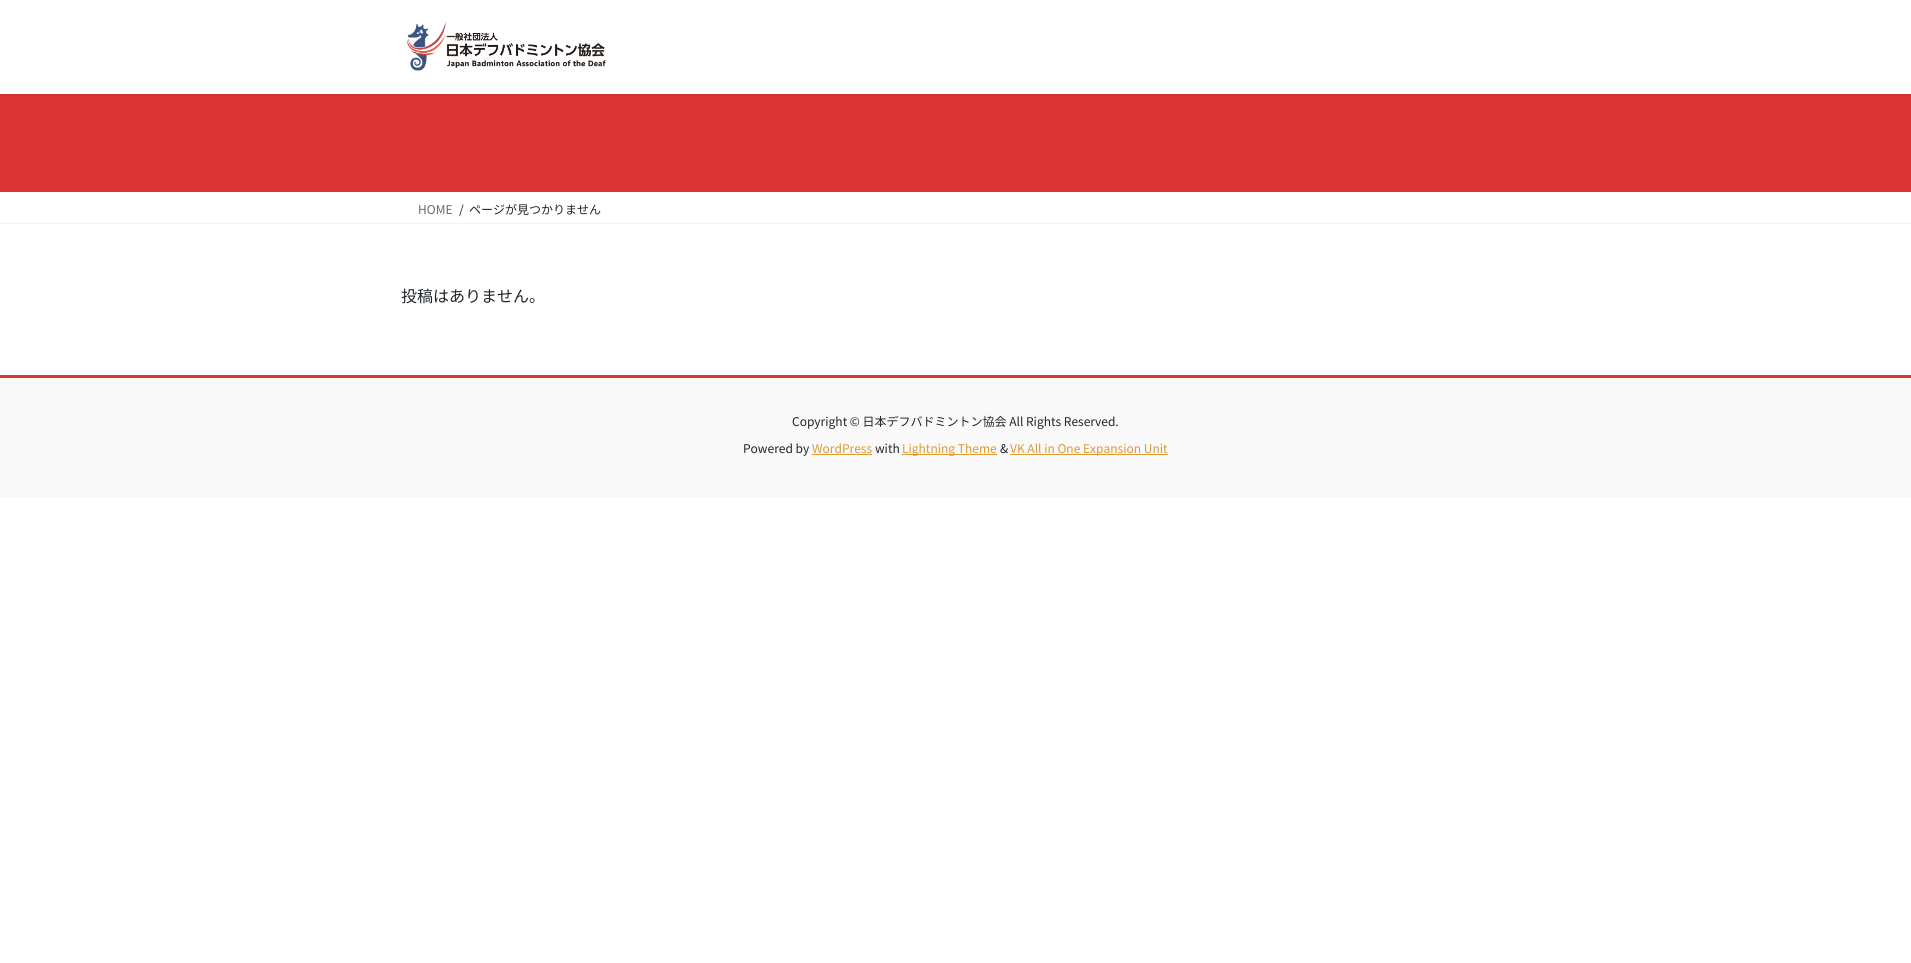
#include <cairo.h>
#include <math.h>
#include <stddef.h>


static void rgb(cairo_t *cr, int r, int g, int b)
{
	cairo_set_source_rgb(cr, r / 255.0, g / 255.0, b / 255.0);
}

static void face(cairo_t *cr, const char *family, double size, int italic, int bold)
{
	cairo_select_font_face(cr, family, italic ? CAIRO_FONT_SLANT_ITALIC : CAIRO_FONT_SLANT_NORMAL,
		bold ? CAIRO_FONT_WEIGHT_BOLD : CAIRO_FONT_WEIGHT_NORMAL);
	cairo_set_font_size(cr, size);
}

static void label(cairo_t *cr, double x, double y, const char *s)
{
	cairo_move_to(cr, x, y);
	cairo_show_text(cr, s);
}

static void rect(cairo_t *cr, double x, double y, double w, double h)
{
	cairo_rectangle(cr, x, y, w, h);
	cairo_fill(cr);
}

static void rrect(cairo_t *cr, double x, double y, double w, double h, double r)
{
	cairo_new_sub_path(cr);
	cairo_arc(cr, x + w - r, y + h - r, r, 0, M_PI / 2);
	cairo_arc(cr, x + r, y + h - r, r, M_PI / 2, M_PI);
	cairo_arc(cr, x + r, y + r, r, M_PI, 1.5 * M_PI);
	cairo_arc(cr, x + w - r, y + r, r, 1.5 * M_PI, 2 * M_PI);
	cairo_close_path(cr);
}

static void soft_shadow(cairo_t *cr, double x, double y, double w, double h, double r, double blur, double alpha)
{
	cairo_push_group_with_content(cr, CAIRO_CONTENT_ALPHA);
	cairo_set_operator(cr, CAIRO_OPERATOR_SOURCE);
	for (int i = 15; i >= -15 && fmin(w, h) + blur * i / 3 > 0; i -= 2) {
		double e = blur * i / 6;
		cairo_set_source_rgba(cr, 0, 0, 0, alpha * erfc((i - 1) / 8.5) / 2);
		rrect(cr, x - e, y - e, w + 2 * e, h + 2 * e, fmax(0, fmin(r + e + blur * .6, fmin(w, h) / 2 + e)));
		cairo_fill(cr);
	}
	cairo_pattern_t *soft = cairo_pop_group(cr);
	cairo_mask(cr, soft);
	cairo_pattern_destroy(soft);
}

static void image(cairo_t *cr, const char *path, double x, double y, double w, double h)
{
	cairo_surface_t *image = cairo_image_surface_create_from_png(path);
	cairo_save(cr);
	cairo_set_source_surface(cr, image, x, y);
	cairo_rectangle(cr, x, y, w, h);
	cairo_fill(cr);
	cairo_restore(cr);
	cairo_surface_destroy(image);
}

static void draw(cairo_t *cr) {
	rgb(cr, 255, 255, 255);
	cairo_paint(cr);
	rgb(cr, 221, 51, 51);
	rect(cr, 0, 94, 1911, 98);
	cairo_save(cr);
	cairo_rectangle(cr, 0, 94, 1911, 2);
	cairo_clip(cr);
	rgb(cr, 0, 0, 0);
	soft_shadow(cr, 0, 1, 1911, 94, 0, 1.5, 0.1);
	cairo_restore(cr);
	image(cr, "image0.png", 407, 21, 199, 50);
	rgb(cr, 242, 242, 242);
	rect(cr, 0, 223, 1911, 1);
	face(cr, "Noto Sans JP", 12, 0, 0);
	rgb(cr, 102, 102, 102);
	label(cr, 418, 214, "HOME");
	rgb(cr, 33, 37, 41);
	label(cr, 459, 214, "/");
	label(cr, 469, 214, "ページが見つかりません");
	face(cr, "Noto Sans JP", 16, 0, 0);
	label(cr, 401, 302, "投稿はありません。");
	rgb(cr, 249, 249, 249);
	rect(cr, 0, 378, 1911, 119);
	rgb(cr, 221, 51, 51);
	rect(cr, 0, 375, 1911, 3);
	face(cr, "Noto Sans JP", 12, 0, 0);
	rgb(cr, 33, 37, 41);
	label(cr, 792, 426, "Copyright © 日本デフバドミントン協会 All Rights Reserved.");
	label(cr, 743, 453, "Powered by");
	rgb(cr, 221, 153, 51);
	label(cr, 812, 453, "WordPress");
	rect(cr, 812, 454, 60, 1);
	rgb(cr, 33, 37, 41);
	label(cr, 875, 453, "with");
	rgb(cr, 221, 153, 51);
	rect(cr, 902, 454, 95, 1);
	label(cr, 902, 453, "Lightning Theme");
	rgb(cr, 33, 37, 41);
	label(cr, 1000, 453, "&");
	rgb(cr, 221, 153, 51);
	rect(cr, 1010, 454, 158, 1);
	label(cr, 1010, 453, "VK All in One Expansion Unit");
}

int main(void) {
	cairo_surface_t *surface = cairo_image_surface_create(CAIRO_FORMAT_RGB24, 1911, 963);
	cairo_t *cr = cairo_create(surface);
	cairo_font_options_t *options = cairo_font_options_create();
	cairo_font_options_set_hint_metrics(options, CAIRO_HINT_METRICS_OFF);
	cairo_font_options_set_hint_style(options, CAIRO_HINT_STYLE_NONE);
	cairo_set_font_options(cr, options);
	cairo_set_miter_limit(cr, 4);
	draw(cr);
	cairo_surface_write_to_png(surface, "render.png");
	cairo_font_options_destroy(options);
	cairo_destroy(cr);
	cairo_surface_destroy(surface);
	return 0;
}
